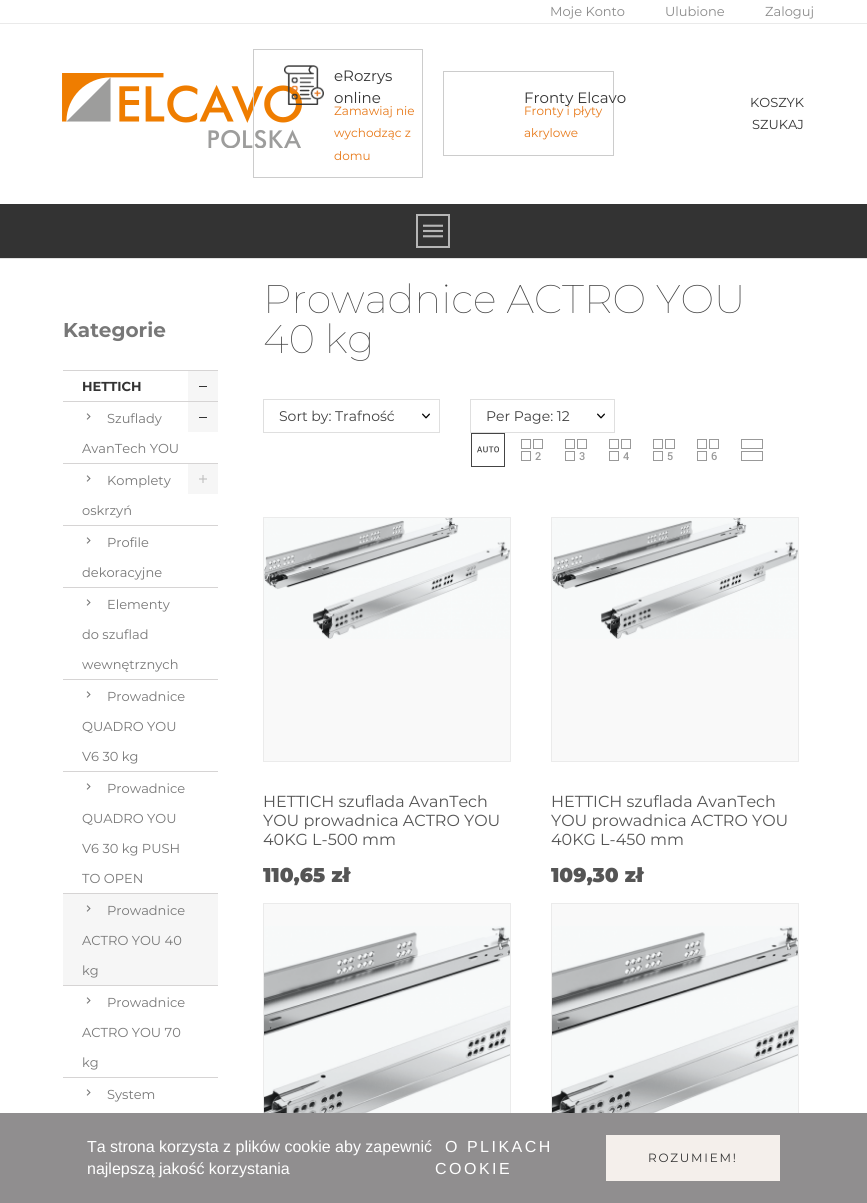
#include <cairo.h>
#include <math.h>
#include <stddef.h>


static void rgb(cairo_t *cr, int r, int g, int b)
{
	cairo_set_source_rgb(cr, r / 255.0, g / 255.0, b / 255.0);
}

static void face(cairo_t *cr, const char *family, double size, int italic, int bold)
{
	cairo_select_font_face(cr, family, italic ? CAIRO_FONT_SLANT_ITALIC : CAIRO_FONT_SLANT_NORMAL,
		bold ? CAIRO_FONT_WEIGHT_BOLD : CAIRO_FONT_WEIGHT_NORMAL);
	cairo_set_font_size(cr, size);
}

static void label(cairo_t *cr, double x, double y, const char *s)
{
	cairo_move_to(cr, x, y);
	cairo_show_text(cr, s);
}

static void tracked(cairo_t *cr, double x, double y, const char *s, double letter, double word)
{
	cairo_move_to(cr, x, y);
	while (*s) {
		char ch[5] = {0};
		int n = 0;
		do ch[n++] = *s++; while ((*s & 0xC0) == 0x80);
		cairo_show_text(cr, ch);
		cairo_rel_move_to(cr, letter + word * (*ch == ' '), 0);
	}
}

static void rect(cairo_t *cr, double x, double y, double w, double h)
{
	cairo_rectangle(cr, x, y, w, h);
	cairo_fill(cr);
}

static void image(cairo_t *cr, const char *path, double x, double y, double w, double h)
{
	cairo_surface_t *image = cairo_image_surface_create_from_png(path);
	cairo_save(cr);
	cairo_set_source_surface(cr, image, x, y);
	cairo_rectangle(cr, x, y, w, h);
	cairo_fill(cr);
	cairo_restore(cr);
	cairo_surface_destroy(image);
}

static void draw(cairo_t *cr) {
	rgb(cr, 255, 255, 255);
	cairo_paint(cr);
	rgb(cr, 225, 225, 225);
	rect(cr, 0, 258, 867, 1);
	rgb(cr, 234, 234, 234);
	rect(cr, 0, 23, 867, 1);
	face(cr, "Montserrat", 13, 0, 0);
	rgb(cr, 138, 138, 138);
	label(cr, 550, 16, "Moje Konto");
	label(cr, 665, 16, "Ulubione");
	label(cr, 765, 16, "Zaloguj");
	image(cr, "image0.png", 62, 73, 240, 75);
	cairo_rectangle(cr, 253.5, 49.5, 169, 128);
	rgb(cr, 204, 204, 204);
	cairo_set_line_width(cr, 1);
	cairo_stroke(cr);
	image(cr, "image1.png", 284, 65, 40, 40);
	face(cr, "Montserrat", 15, 0, 0);
	rgb(cr, 51, 51, 51);
	label(cr, 334, 81, "eRozrys");
	label(cr, 334, 103, "online");
	face(cr, "Montserrat", 12, 0, 0);
	rgb(cr, 231, 120, 23);
	label(cr, 334, 115, "Zamawiaj nie");
	label(cr, 334, 137, "wychodząc z");
	label(cr, 334, 160, "domu");
	cairo_rectangle(cr, 443.5, 71.5, 170, 84);
	rgb(cr, 204, 204, 204);
	cairo_stroke(cr);
	face(cr, "Montserrat", 15, 0, 0);
	rgb(cr, 51, 51, 51);
	label(cr, 524, 103, "Fronty Elcavo");
	face(cr, "Montserrat", 12, 0, 0);
	rgb(cr, 231, 120, 23);
	label(cr, 524, 115, "Fronty i płyty");
	label(cr, 524, 137, "akrylowe");
	face(cr, "Montserrat", 13, 0, 0);
	rgb(cr, 51, 51, 51);
	label(cr, 750, 107, "KOSZYK");
	label(cr, 752, 129, "SZUKAJ");
	rect(cr, 0, 204, 867, 54);
	cairo_rectangle(cr, 417, 215, 32, 32);
	rgb(cr, 182, 182, 182);
	cairo_set_line_width(cr, 2);
	cairo_stroke(cr);
	image(cr, "image2.png", 423, 224, 20, 14);
	face(cr, "Montserrat", 20, 0, 1);
	rgb(cr, 119, 119, 119);
	label(cr, 63, 337, "Kategorie");
	rgb(cr, 214, 212, 212);
	rect(cr, 63, 370, 155, 1);
	rect(cr, 63, 401, 155, 1);
	face(cr, "Montserrat", 13, 0, 1);
	rgb(cr, 51, 51, 51);
	label(cr, 82, 391, "HETTICH");
	rgb(cr, 246, 246, 246);
	rect(cr, 188, 371, 30, 30);
	rgb(cr, 51, 51, 51);
	rect(cr, 199, 386, 8, 1);
	rgb(cr, 214, 212, 212);
	rect(cr, 63, 463, 155, 1);
	image(cr, "image3.png", 86, 413, 5, 7);
	face(cr, "Montserrat", 13, 0, 0);
	rgb(cr, 119, 119, 119);
	label(cr, 107, 423, "Szuflady");
	label(cr, 82, 453, "AvanTech YOU");
	rgb(cr, 246, 246, 246);
	rect(cr, 188, 402, 30, 30);
	rgb(cr, 51, 51, 51);
	rect(cr, 199, 417, 8, 1);
	rgb(cr, 214, 212, 212);
	rect(cr, 63, 525, 155, 1);
	image(cr, "image3.png", 86, 475, 5, 7);
	rgb(cr, 119, 119, 119);
	label(cr, 107, 485, "Komplety");
	label(cr, 82, 515, "oskrzyń");
	rgb(cr, 246, 246, 246);
	rect(cr, 188, 464, 30, 30);
	image(cr, "image4.png", 199, 475, 8, 8);
	rgb(cr, 214, 212, 212);
	rect(cr, 63, 587, 155, 1);
	image(cr, "image3.png", 86, 537, 5, 7);
	rgb(cr, 119, 119, 119);
	label(cr, 107, 547, "Profile");
	label(cr, 82, 577, "dekoracyjne");
	rgb(cr, 214, 212, 212);
	rect(cr, 63, 679, 155, 1);
	image(cr, "image3.png", 86, 599, 5, 7);
	rgb(cr, 119, 119, 119);
	label(cr, 107, 609, "Elementy");
	label(cr, 82, 639, "do szuflad");
	label(cr, 82, 669, "wewnętrznych");
	rgb(cr, 214, 212, 212);
	rect(cr, 63, 771, 155, 1);
	image(cr, "image3.png", 86, 691, 5, 7);
	rgb(cr, 119, 119, 119);
	label(cr, 107, 701, "Prowadnice");
	label(cr, 82, 731, "QUADRO YOU");
	label(cr, 82, 761, "V6 30 kg");
	rgb(cr, 214, 212, 212);
	rect(cr, 63, 893, 155, 1);
	image(cr, "image3.png", 86, 783, 5, 7);
	rgb(cr, 119, 119, 119);
	label(cr, 107, 793, "Prowadnice");
	label(cr, 82, 823, "QUADRO YOU");
	label(cr, 82, 853, "V6 30 kg PUSH");
	label(cr, 82, 883, "TO OPEN");
	rgb(cr, 246, 246, 246);
	rect(cr, 63, 894, 155, 91);
	rgb(cr, 214, 212, 212);
	rect(cr, 63, 985, 155, 1);
	image(cr, "image5.png", 86, 905, 5, 7);
	rgb(cr, 119, 119, 119);
	label(cr, 107, 915, "Prowadnice");
	label(cr, 82, 945, "ACTRO YOU 40");
	label(cr, 82, 975, "kg");
	rgb(cr, 214, 212, 212);
	rect(cr, 63, 1077, 155, 1);
	image(cr, "image3.png", 86, 997, 5, 7);
	rgb(cr, 119, 119, 119);
	label(cr, 107, 1007, "Prowadnice");
	label(cr, 82, 1037, "ACTRO YOU 70");
	label(cr, 82, 1067, "kg");
	image(cr, "image3.png", 86, 1089, 5, 7);
	label(cr, 107, 1099, "System");
	face(cr, "Montserrat Thin", 40, 0, 0);
	rgb(cr, 65, 65, 65);
	label(cr, 263, 313, "Prowadnice ACTRO YOU");
	label(cr, 263, 353, "40 kg");
	cairo_rectangle(cr, 263.5, 399.5, 176, 33);
	rgb(cr, 223, 223, 223);
	cairo_set_line_width(cr, 1);
	cairo_stroke(cr);
	face(cr, "Montserrat", 14, 0, 0);
	rgb(cr, 65, 65, 65);
	label(cr, 279, 421, "Sort by: Trafność");
	image(cr, "image6.png", 422, 413, 8, 6);
	cairo_rectangle(cr, 470.5, 399.5, 144, 33);
	rgb(cr, 223, 223, 223);
	cairo_stroke(cr);
	rgb(cr, 65, 65, 65);
	label(cr, 486, 421, "Per Page: 12");
	image(cr, "image6.png", 597, 413, 8, 6);
	cairo_rectangle(cr, 471.5, 433.5, 33, 33);
	rgb(cr, 68, 68, 68);
	cairo_stroke(cr);
	image(cr, "image7.png", 477, 446, 22, 7);
	image(cr, "image8.png", 521, 439, 22, 22);
	image(cr, "image9.png", 565, 439, 22, 22);
	image(cr, "image10.png", 609, 439, 22, 22);
	image(cr, "image11.png", 653, 439, 22, 22);
	image(cr, "image12.png", 697, 439, 22, 22);
	image(cr, "image13.png", 741, 439, 22, 22);
	rgb(cr, 249, 249, 249);
	rect(cr, 264, 639, 246, 122);
	cairo_rectangle(cr, 263.5, 517.5, 247, 244);
	rgb(cr, 235, 235, 235);
	cairo_stroke(cr);
	image(cr, "image14.png", 264, 518, 246, 121);
	face(cr, "Montserrat", 16, 0, 0);
	rgb(cr, 85, 85, 85);
	label(cr, 263, 807, "HETTICH szuflada AvanTech");
	label(cr, 263, 826, "YOU prowadnica ACTRO YOU");
	label(cr, 263, 845, "40KG L-500 mm");
	face(cr, "Montserrat Black", 20, 0, 0);
	label(cr, 263, 882, "110,65 zł");
	rgb(cr, 249, 249, 249);
	rect(cr, 552, 639, 246, 122);
	cairo_rectangle(cr, 551.5, 517.5, 247, 244);
	rgb(cr, 235, 235, 235);
	cairo_stroke(cr);
	image(cr, "image14.png", 552, 518, 246, 121);
	face(cr, "Montserrat", 16, 0, 0);
	rgb(cr, 85, 85, 85);
	label(cr, 551, 807, "HETTICH szuflada AvanTech");
	label(cr, 551, 826, "YOU prowadnica ACTRO YOU");
	label(cr, 551, 845, "40KG L-450 mm");
	face(cr, "Montserrat Black", 20, 0, 0);
	label(cr, 551, 882, "109,30 zł");
	rgb(cr, 249, 249, 249);
	rect(cr, 264, 904, 246, 22);
	cairo_rectangle(cr, 263.5, 903.5, 247, 246);
	rgb(cr, 235, 235, 235);
	cairo_stroke(cr);
	image(cr, "image15.png", 264, 926, 246, 187);
	rgb(cr, 249, 249, 249);
	rect(cr, 552, 904, 246, 22);
	cairo_rectangle(cr, 551.5, 903.5, 247, 246);
	rgb(cr, 235, 235, 235);
	cairo_stroke(cr);
	image(cr, "image15.png", 552, 926, 246, 187);
	rgb(cr, 144, 142, 143);
	rect(cr, 0, 1113, 867, 90);
	face(cr, "Liberation Sans", 16, 0, 0);
	rgb(cr, 255, 255, 255);
	label(cr, 87, 1152, "Ta strona korzysta z plików cookie aby zapewnić");
	label(cr, 87, 1174, "najlepszą jakość korzystania");
	tracked(cr, 445, 1152, "O PLIKACH", 2.5, 0);
	tracked(cr, 435, 1174, "COOKIE", 2.5, 0);
	rgb(cr, 244, 239, 235);
	rect(cr, 606, 1135, 174, 46);
	face(cr, "Montserrat", 12, 0, 0);
	rgb(cr, 51, 51, 51);
	tracked(cr, 648, 1162, "ROZUMIEM!", 1.75, 0);
}

int main(void) {
	cairo_surface_t *surface = cairo_image_surface_create(CAIRO_FORMAT_RGB24, 867, 1203);
	cairo_t *cr = cairo_create(surface);
	cairo_font_options_t *options = cairo_font_options_create();
	cairo_font_options_set_hint_metrics(options, CAIRO_HINT_METRICS_OFF);
	cairo_font_options_set_hint_style(options, CAIRO_HINT_STYLE_NONE);
	cairo_set_font_options(cr, options);
	cairo_set_miter_limit(cr, 4);
	draw(cr);
	cairo_surface_write_to_png(surface, "render.png");
	cairo_font_options_destroy(options);
	cairo_destroy(cr);
	cairo_surface_destroy(surface);
	return 0;
}
